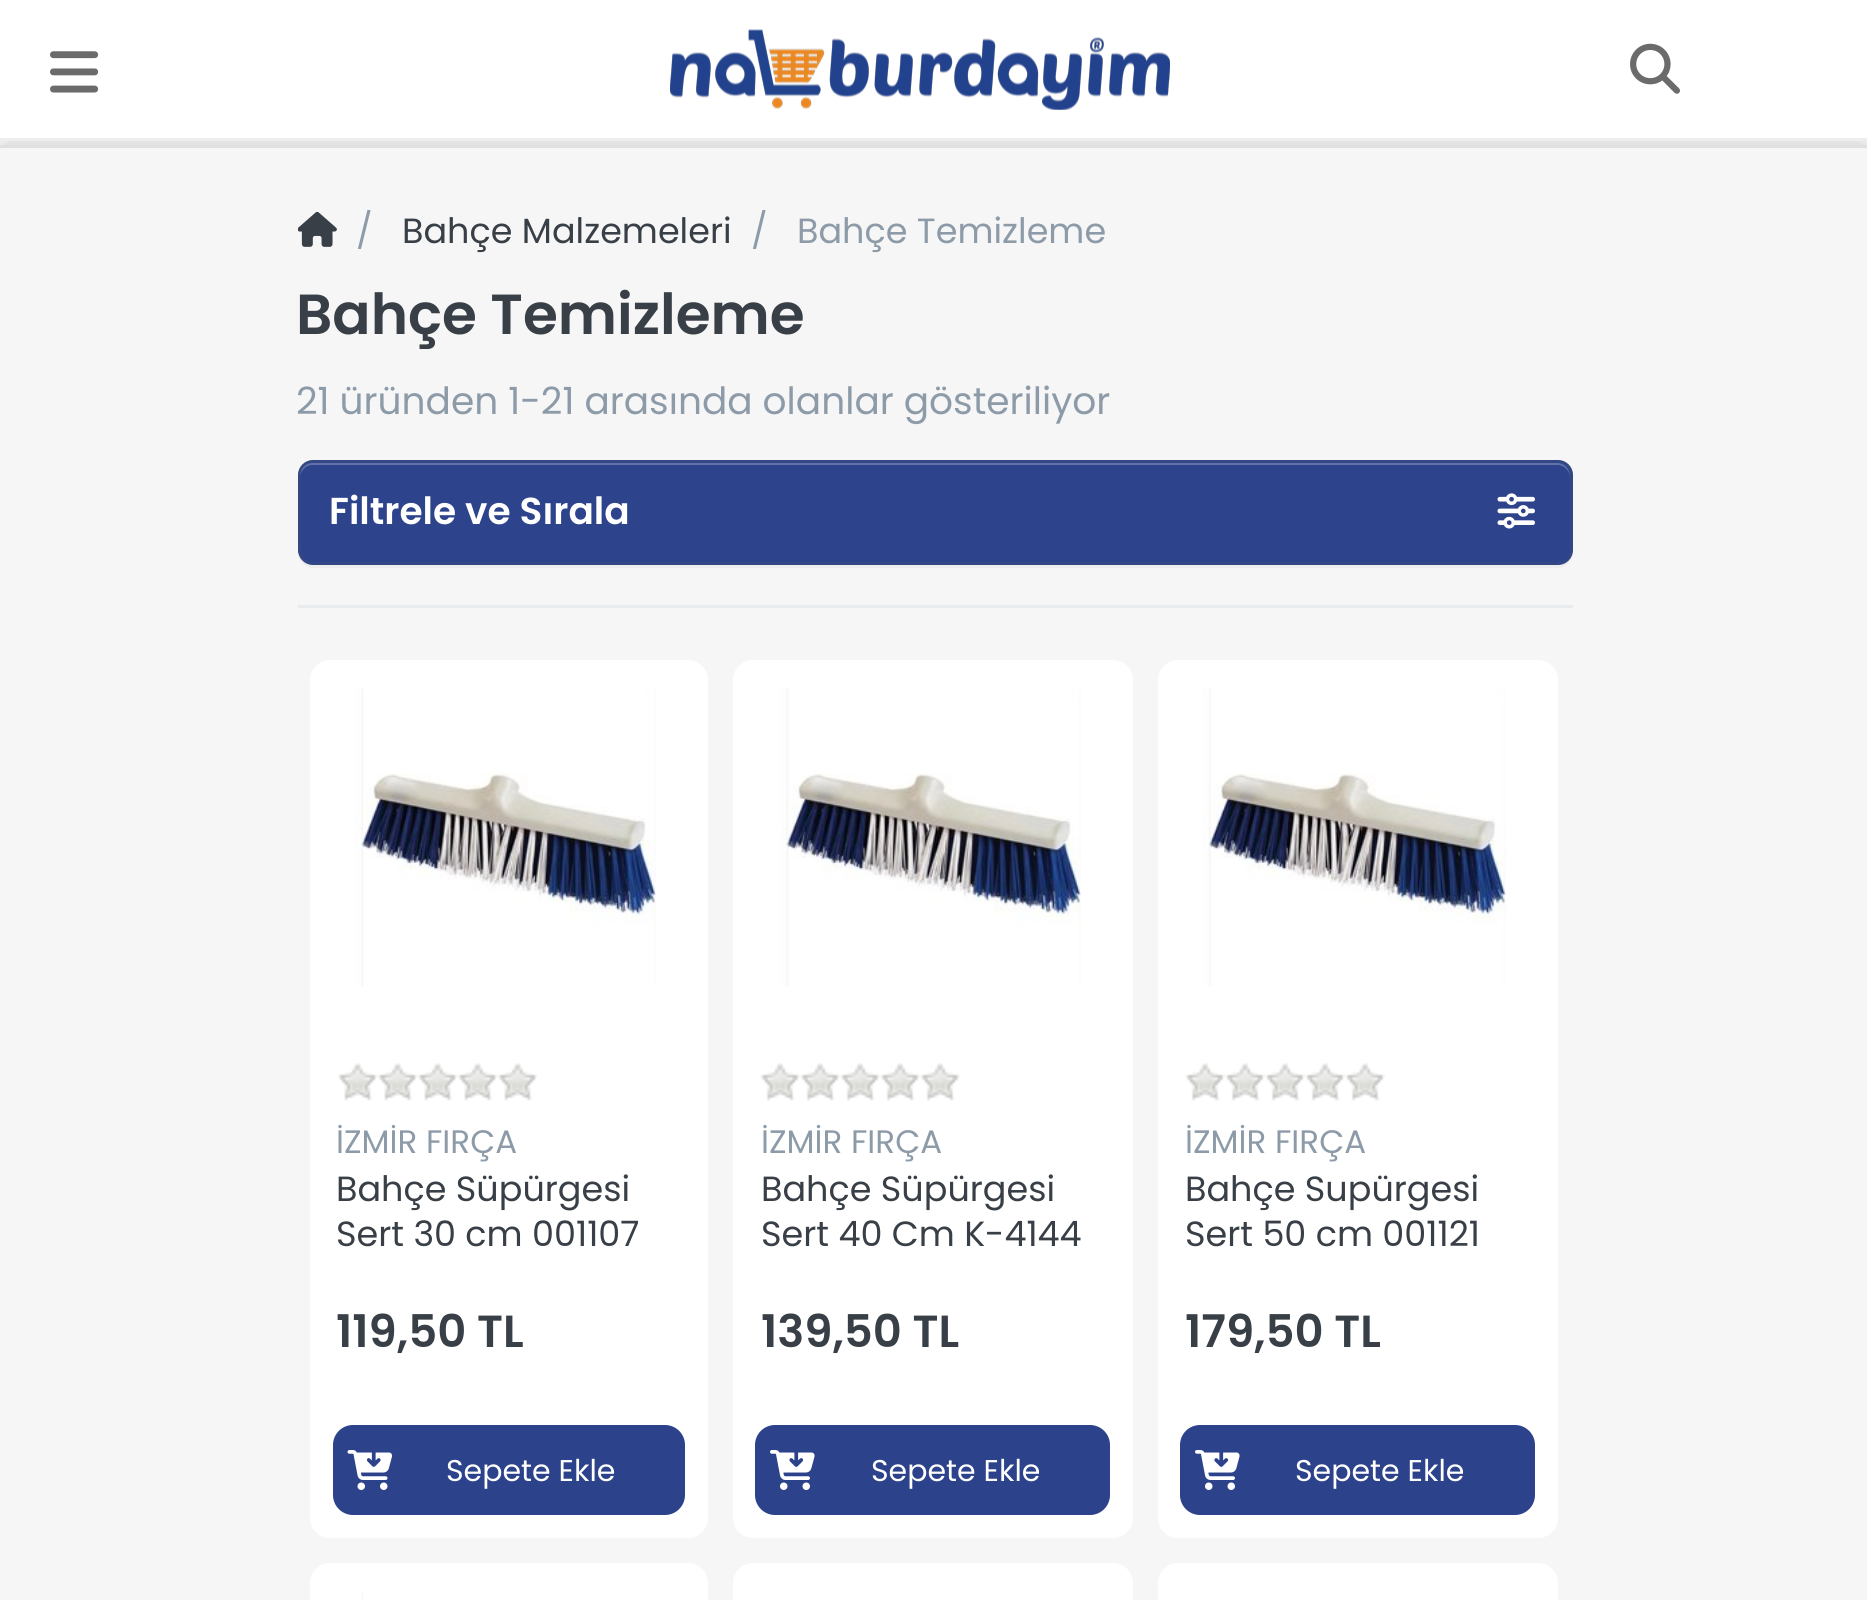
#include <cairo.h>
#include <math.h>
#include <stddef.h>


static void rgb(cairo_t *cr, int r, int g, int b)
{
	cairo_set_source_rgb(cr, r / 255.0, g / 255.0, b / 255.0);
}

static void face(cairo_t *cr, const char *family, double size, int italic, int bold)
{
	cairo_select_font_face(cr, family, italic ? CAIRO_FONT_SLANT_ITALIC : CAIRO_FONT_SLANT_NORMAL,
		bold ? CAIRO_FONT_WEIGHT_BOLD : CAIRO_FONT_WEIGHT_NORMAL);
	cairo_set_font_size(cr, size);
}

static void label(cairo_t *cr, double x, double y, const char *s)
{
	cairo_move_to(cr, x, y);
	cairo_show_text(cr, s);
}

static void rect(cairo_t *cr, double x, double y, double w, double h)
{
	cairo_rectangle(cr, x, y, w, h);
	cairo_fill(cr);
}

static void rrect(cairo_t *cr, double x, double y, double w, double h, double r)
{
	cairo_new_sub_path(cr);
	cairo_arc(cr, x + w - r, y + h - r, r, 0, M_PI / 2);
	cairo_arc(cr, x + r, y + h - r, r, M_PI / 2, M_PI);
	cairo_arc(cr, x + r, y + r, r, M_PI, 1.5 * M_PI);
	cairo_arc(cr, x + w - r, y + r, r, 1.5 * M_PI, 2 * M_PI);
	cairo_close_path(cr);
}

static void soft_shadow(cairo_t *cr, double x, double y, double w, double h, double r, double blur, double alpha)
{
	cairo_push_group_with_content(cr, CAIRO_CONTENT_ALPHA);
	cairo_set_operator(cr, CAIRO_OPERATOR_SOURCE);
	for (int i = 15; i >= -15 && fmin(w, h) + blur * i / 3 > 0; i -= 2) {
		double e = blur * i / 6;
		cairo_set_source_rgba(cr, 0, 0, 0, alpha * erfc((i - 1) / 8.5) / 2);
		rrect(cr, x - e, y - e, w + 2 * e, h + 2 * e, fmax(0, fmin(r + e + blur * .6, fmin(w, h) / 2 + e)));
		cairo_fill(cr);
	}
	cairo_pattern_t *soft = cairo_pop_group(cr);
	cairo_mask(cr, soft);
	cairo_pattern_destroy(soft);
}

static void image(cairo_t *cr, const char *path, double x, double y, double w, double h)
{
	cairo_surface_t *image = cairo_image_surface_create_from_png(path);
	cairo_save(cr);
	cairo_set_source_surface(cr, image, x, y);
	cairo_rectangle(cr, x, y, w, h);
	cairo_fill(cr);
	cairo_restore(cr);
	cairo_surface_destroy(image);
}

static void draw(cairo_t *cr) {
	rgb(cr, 252, 252, 255);
	cairo_paint(cr);
	rgb(cr, 0, 0, 0);
	soft_shadow(cr, 0, 145, 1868, 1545, 0, 30, 0.2);
	rgb(cr, 224, 224, 224);
	rect(cr, 0, 145, 1867, 3);
	rgb(cr, 255, 255, 255);
	rect(cr, 0, 0, 1867, 138);
	rgb(cr, 238, 238, 238);
	rect(cr, 0, 138, 1867, 3);
	image(cr, "image0.png", 50, 51, 49, 42);
	image(cr, "image1.png", 670, 29, 500, 81);
	image(cr, "image2.png", 1630, 43, 50, 51);
	rgb(cr, 246, 246, 246);
	rect(cr, 0, 148, 1867, 1452);
	image(cr, "image3.png", 298, 211, 39, 36);
	face(cr, "Poppins", 35, 0, 0);
	rgb(cr, 141, 155, 169);
	label(cr, 356, 243, "/");
	rgb(cr, 57, 63, 70);
	label(cr, 402, 243, "Bahçe Malzemeleri");
	rgb(cr, 141, 155, 169);
	label(cr, 751, 243, "/");
	label(cr, 797, 243, "Bahçe Temizleme");
	face(cr, "Poppins SemiBold", 56.5, 0, 0);
	rgb(cr, 57, 63, 70);
	label(cr, 296, 334, "Bahçe Temizleme");
	face(cr, "Poppins", 37.5, 0, 0);
	rgb(cr, 141, 155, 169);
	label(cr, 296, 414, "21 üründen 1-21 arasında olanlar gösteriliyor");
	rgb(cr, 233, 236, 239);
	rect(cr, 298, 605, 1275, 3);
	rgb(cr, 238, 238, 238);
	cairo_new_path(cr);
	cairo_move_to(cr, 298, 554);
	cairo_curve_to(cr, 299, 562, 305, 568, 313, 568);
	cairo_line_to(cr, 1558, 568);
	cairo_curve_to(cr, 1566, 568, 1573, 561, 1573, 553);
	cairo_line_to(cr, 1573, 478);
	cairo_line_to(cr, 1572, 474);
	cairo_line_to(cr, 1572, 550);
	cairo_curve_to(cr, 1572, 558, 1566, 565, 1558, 565);
	cairo_line_to(cr, 312, 565);
	cairo_curve_to(cr, 306, 565, 300, 560, 298, 554);
	cairo_close_path(cr);
	cairo_fill(cr);
	rgb(cr, 45, 67, 139);
	rrect(cr, 298, 460, 1275, 105, 15);
	cairo_fill(cr);
	rgb(cr, 98, 114, 168);
	cairo_new_path(cr);
	cairo_move_to(cr, 312, 465);
	cairo_line_to(cr, 1558, 465);
	cairo_curve_to(cr, 1564, 465, 1570, 471, 1570, 478);
	cairo_curve_to(cr, 1570, 470, 1566, 463, 1557, 463);
	cairo_line_to(cr, 313, 463);
	cairo_curve_to(cr, 304, 463, 300, 470, 300, 478);
	cairo_curve_to(cr, 300, 471, 306, 465, 312, 465);
	cairo_close_path(cr);
	cairo_fill(cr);
	rrect(cr, 299.5, 461.5, 1272, 102, 13.5);
	cairo_set_source_rgba(cr, 0.349, 0.38, 0.404, 0.15);
	cairo_set_line_width(cr, 3);
	cairo_stroke(cr);
	face(cr, "Poppins SemiBold", 37.5, 0, 0);
	rgb(cr, 255, 255, 255);
	label(cr, 329, 524, "Filtrele ve Sırala");
	image(cr, "image4.png", 1497, 493, 38, 36);
	rrect(cr, 310, 660, 398, 878, 20);
	cairo_fill(cr);
	image(cr, "image5.png", 355, 688, 301, 299);
	image(cr, "image6.png", 338, 1063, 200, 38);
	face(cr, "Poppins", 32.5, 0, 0);
	rgb(cr, 141, 155, 169);
	label(cr, 336, 1153, "İZMİR FIRÇA");
	face(cr, "Poppins", 35, 0, 0);
	rgb(cr, 57, 63, 70);
	label(cr, 336, 1201, "Bahçe Süpürgesi");
	label(cr, 336, 1246, "Sert 30 cm 001107");
	face(cr, "Poppins SemiBold", 45, 0, 0);
	label(cr, 336, 1347, "119,50 TL");
	rgb(cr, 44, 66, 139);
	rrect(cr, 333, 1425, 352, 90, 20);
	cairo_fill(cr);
	image(cr, "image7.png", 347, 1450, 46, 40);
	face(cr, "Poppins", 30, 0, 0);
	rgb(cr, 255, 255, 255);
	label(cr, 446, 1481, "Sepete Ekle");
	rrect(cr, 733, 660, 400, 878, 20);
	cairo_fill(cr);
	image(cr, "image5.png", 780, 688, 301, 299);
	image(cr, "image8.png", 760, 1063, 200, 38);
	face(cr, "Poppins", 32.5, 0, 0);
	rgb(cr, 141, 155, 169);
	label(cr, 761, 1153, "İZMİR FIRÇA");
	face(cr, "Poppins", 35, 0, 0);
	rgb(cr, 57, 63, 70);
	label(cr, 761, 1201, "Bahçe Süpürgesi");
	label(cr, 761, 1246, "Sert 40 Cm K-4144");
	face(cr, "Poppins SemiBold", 45, 0, 0);
	label(cr, 761, 1347, "139,50 TL");
	rgb(cr, 44, 66, 139);
	rrect(cr, 755, 1425, 355, 90, 20);
	cairo_fill(cr);
	image(cr, "image9.png", 770, 1450, 45, 40);
	face(cr, "Poppins", 30, 0, 0);
	rgb(cr, 255, 255, 255);
	label(cr, 871, 1481, "Sepete Ekle");
	rrect(cr, 1158, 660, 400, 878, 20);
	cairo_fill(cr);
	image(cr, "image10.png", 1203, 688, 303, 299);
	image(cr, "image11.png", 1185, 1063, 200, 38);
	face(cr, "Poppins", 32.5, 0, 0);
	rgb(cr, 141, 155, 169);
	label(cr, 1185, 1153, "İZMİR FIRÇA");
	face(cr, "Poppins", 35, 0, 0);
	rgb(cr, 57, 63, 70);
	label(cr, 1185, 1201, "Bahçe Supürgesi");
	label(cr, 1185, 1246, "Sert 50 cm 001121");
	face(cr, "Poppins SemiBold", 45, 0, 0);
	label(cr, 1185, 1347, "179,50 TL");
	rgb(cr, 44, 66, 139);
	rrect(cr, 1180, 1425, 355, 90, 20);
	cairo_fill(cr);
	image(cr, "image9.png", 1195, 1450, 45, 40);
	face(cr, "Poppins", 30, 0, 0);
	rgb(cr, 255, 255, 255);
	label(cr, 1295, 1481, "Sepete Ekle");
	rrect(cr, 310, 1563, 398, 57, 20);
	cairo_fill(cr);
	rgb(cr, 247, 247, 247);
	rect(cr, 362, 1590, 1, 10);
	rgb(cr, 255, 255, 255);
	rrect(cr, 733, 1563, 400, 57, 20);
	cairo_fill(cr);
	rrect(cr, 1158, 1563, 400, 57, 20);
	cairo_fill(cr);
}

int main(void) {
	cairo_surface_t *surface = cairo_image_surface_create(CAIRO_FORMAT_RGB24, 1867, 1600);
	cairo_t *cr = cairo_create(surface);
	cairo_font_options_t *options = cairo_font_options_create();
	cairo_font_options_set_hint_metrics(options, CAIRO_HINT_METRICS_OFF);
	cairo_font_options_set_hint_style(options, CAIRO_HINT_STYLE_NONE);
	cairo_set_font_options(cr, options);
	cairo_set_miter_limit(cr, 4);
	draw(cr);
	cairo_surface_write_to_png(surface, "render.png");
	cairo_font_options_destroy(options);
	cairo_destroy(cr);
	cairo_surface_destroy(surface);
	return 0;
}
